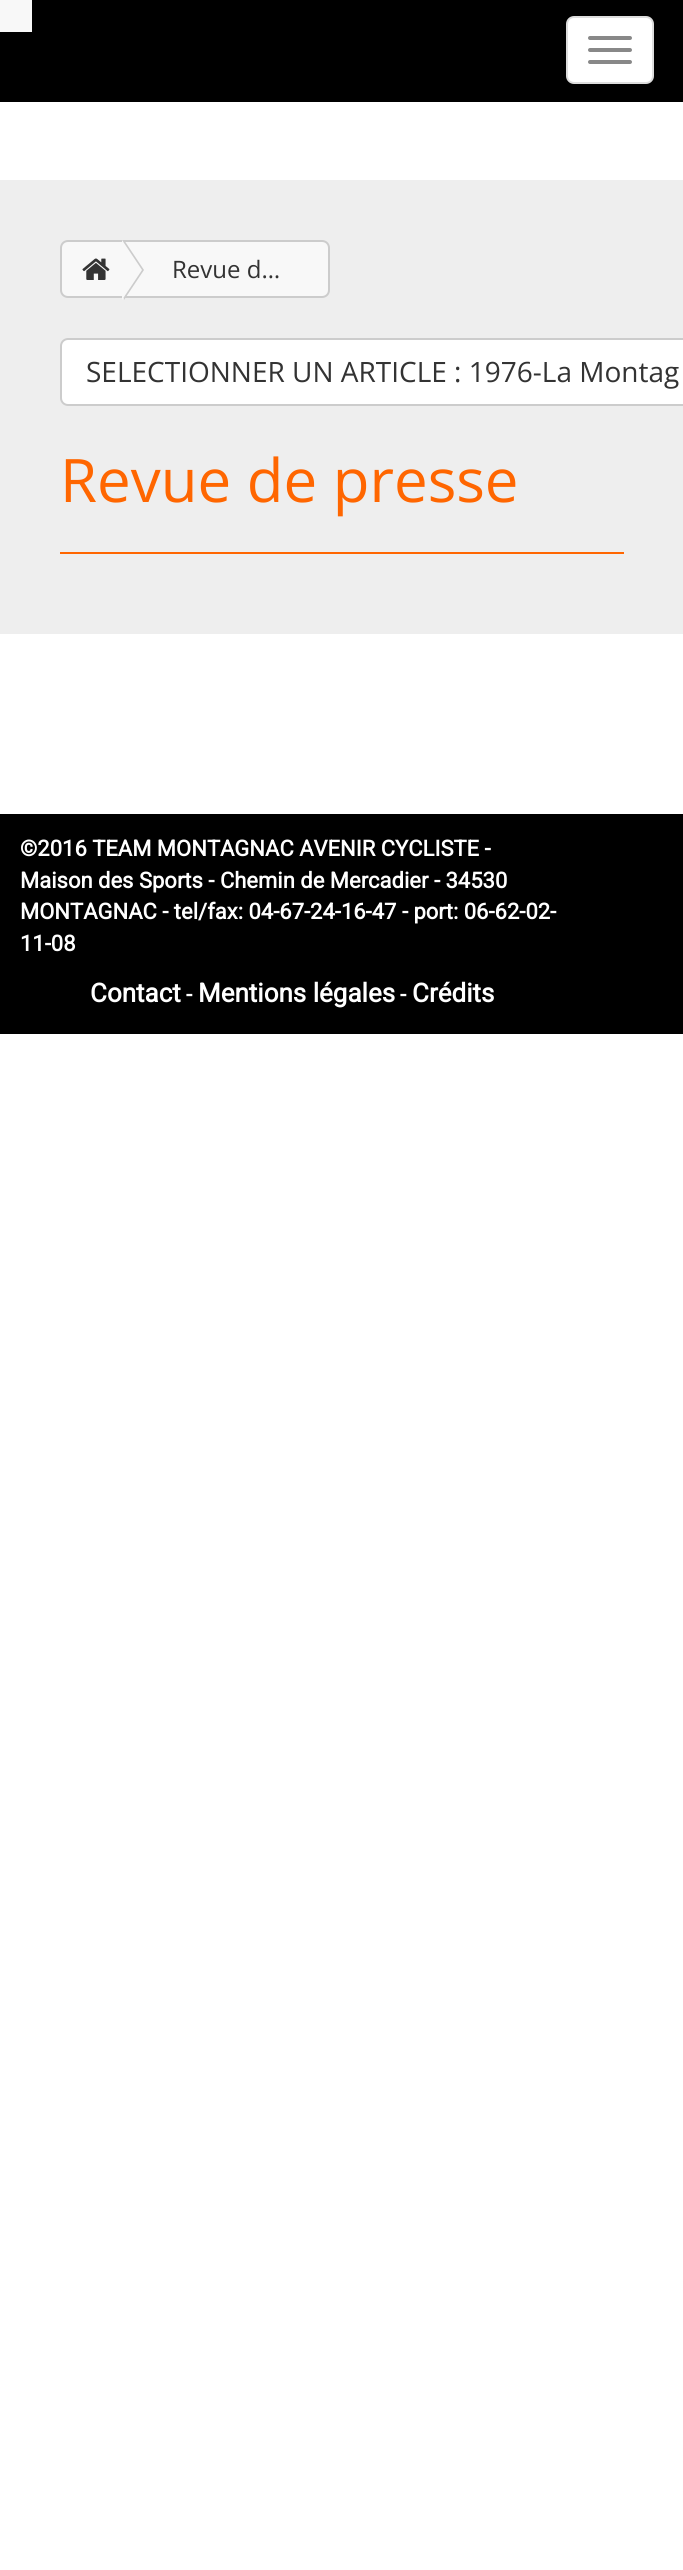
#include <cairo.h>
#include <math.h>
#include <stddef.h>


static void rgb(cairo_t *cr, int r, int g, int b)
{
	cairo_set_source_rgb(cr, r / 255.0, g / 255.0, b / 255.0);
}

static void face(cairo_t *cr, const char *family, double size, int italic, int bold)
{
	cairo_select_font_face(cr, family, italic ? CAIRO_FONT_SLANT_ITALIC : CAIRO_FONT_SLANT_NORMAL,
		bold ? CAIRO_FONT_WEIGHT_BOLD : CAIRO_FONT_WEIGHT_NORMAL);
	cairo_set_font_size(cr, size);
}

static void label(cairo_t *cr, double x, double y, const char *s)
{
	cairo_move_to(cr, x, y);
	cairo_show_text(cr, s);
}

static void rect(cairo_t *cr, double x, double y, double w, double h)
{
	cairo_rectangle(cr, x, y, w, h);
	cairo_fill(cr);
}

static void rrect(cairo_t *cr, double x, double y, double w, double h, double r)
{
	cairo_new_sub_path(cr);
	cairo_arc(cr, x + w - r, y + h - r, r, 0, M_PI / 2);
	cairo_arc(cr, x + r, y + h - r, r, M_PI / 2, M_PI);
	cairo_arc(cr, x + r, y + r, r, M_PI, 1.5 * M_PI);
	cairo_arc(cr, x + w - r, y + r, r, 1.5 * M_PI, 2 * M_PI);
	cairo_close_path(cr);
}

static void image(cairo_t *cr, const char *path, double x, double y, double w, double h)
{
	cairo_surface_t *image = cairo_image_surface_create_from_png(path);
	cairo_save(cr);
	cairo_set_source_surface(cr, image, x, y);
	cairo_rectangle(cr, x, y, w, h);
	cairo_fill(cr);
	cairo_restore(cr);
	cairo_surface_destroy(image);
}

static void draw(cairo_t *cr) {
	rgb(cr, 255, 255, 255);
	cairo_paint(cr);
	rgb(cr, 0, 0, 0);
	rect(cr, 0, 0, 683, 102);
	rgb(cr, 255, 255, 255);
	rrect(cr, 567, 17, 86, 66, 7);
	cairo_fill_preserve(cr);
	rgb(cr, 221, 221, 221);
	cairo_stroke(cr);
	rgb(cr, 136, 136, 136);
	rrect(cr, 588, 36, 44, 4, 2);
	cairo_fill(cr);
	rrect(cr, 588, 48, 44, 4, 2);
	cairo_fill(cr);
	rrect(cr, 588, 60, 44, 4, 2);
	cairo_fill(cr);
	rgb(cr, 248, 248, 248);
	rect(cr, 0, 0, 32, 32);
	rgb(cr, 238, 238, 238);
	rect(cr, 0, 180, 683, 454);
	rgb(cr, 248, 248, 248);
	cairo_new_path(cr);
	cairo_move_to(cr, 68, 241);
	cairo_line_to(cr, 123, 241);
	cairo_line_to(cr, 123, 297);
	cairo_line_to(cr, 68, 297);
	cairo_curve_to(cr, 64, 297, 61, 294, 61, 290);
	cairo_line_to(cr, 61, 248);
	cairo_curve_to(cr, 61, 244, 64, 241, 68, 241);
	cairo_close_path(cr);
	cairo_fill_preserve(cr);
	rgb(cr, 204, 204, 204);
	cairo_stroke(cr);
	rgb(cr, 248, 248, 248);
	cairo_new_path(cr);
	cairo_move_to(cr, 123, 241);
	cairo_line_to(cr, 322, 241);
	cairo_curve_to(cr, 326, 241, 329, 244, 329, 248);
	cairo_line_to(cr, 329, 290);
	cairo_curve_to(cr, 329, 294, 326, 297, 322, 297);
	cairo_line_to(cr, 123, 297);
	cairo_close_path(cr);
	cairo_fill_preserve(cr);
	rgb(cr, 204, 204, 204);
	cairo_stroke(cr);
	cairo_new_path(cr);
	cairo_move_to(cr, 124, 300);
	cairo_line_to(cr, 124, 240);
	cairo_line_to(cr, 144, 270);
	cairo_close_path(cr);
	cairo_fill(cr);
	rgb(cr, 248, 248, 248);
	cairo_new_path(cr);
	cairo_move_to(cr, 122, 300);
	cairo_line_to(cr, 122, 240);
	cairo_line_to(cr, 142, 270);
	cairo_close_path(cr);
	cairo_fill(cr);
	image(cr, "image0.png", 82, 258, 28, 22);
	face(cr, "Open Sans", 24, 0, 0);
	rgb(cr, 51, 51, 51);
	label(cr, 172, 278, "Revue d…");
	rgb(cr, 255, 255, 255);
	rrect(cr, 61, 339, 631, 66, 7);
	cairo_fill_preserve(cr);
	rgb(cr, 204, 204, 204);
	cairo_stroke(cr);
	face(cr, "Open Sans", 28, 0, 0);
	rgb(cr, 51, 51, 51);
	label(cr, 86, 382, "SELECTIONNER UN ARTICLE : 1976-La Montag");
	face(cr, "Open Sans", 60, 0, 0);
	rgb(cr, 255, 102, 0);
	label(cr, 60, 502, "Revue de presse");
	rect(cr, 60, 552, 564, 2);
	rgb(cr, 0, 0, 0);
	rect(cr, 0, 814, 683, 220);
	face(cr, "Roboto", 22, 0, 1);
	rgb(cr, 255, 255, 255);
	label(cr, 20, 856, "©2016 TEAM MONTAGNAC AVENIR CYCLISTE -");
	label(cr, 20, 888, "Maison des Sports - Chemin de Mercadier - 34530");
	label(cr, 20, 919, "MONTAGNAC - tel/fax: 04-67-24-16-47 - port: 06-62-02-");
	label(cr, 20, 951, "11-08");
	face(cr, "Roboto", 26, 0, 1);
	label(cr, 90, 1002, "Contact");
	face(cr, "Roboto", 22, 0, 1);
	label(cr, 186, 1002, "-");
	face(cr, "Roboto", 26, 0, 1);
	label(cr, 198, 1002, "Mentions légales");
	face(cr, "Roboto", 22, 0, 1);
	label(cr, 400, 1002, "-");
	face(cr, "Roboto", 26, 0, 1);
	label(cr, 412, 1002, "Crédits");
}

int main(void) {
	cairo_surface_t *surface = cairo_image_surface_create(CAIRO_FORMAT_RGB24, 683, 2570);
	cairo_t *cr = cairo_create(surface);
	cairo_font_options_t *options = cairo_font_options_create();
	cairo_font_options_set_hint_metrics(options, CAIRO_HINT_METRICS_OFF);
	cairo_font_options_set_hint_style(options, CAIRO_HINT_STYLE_NONE);
	cairo_set_font_options(cr, options);
	cairo_set_miter_limit(cr, 4);
	draw(cr);
	cairo_surface_write_to_png(surface, "render.png");
	cairo_font_options_destroy(options);
	cairo_destroy(cr);
	cairo_surface_destroy(surface);
	return 0;
}
